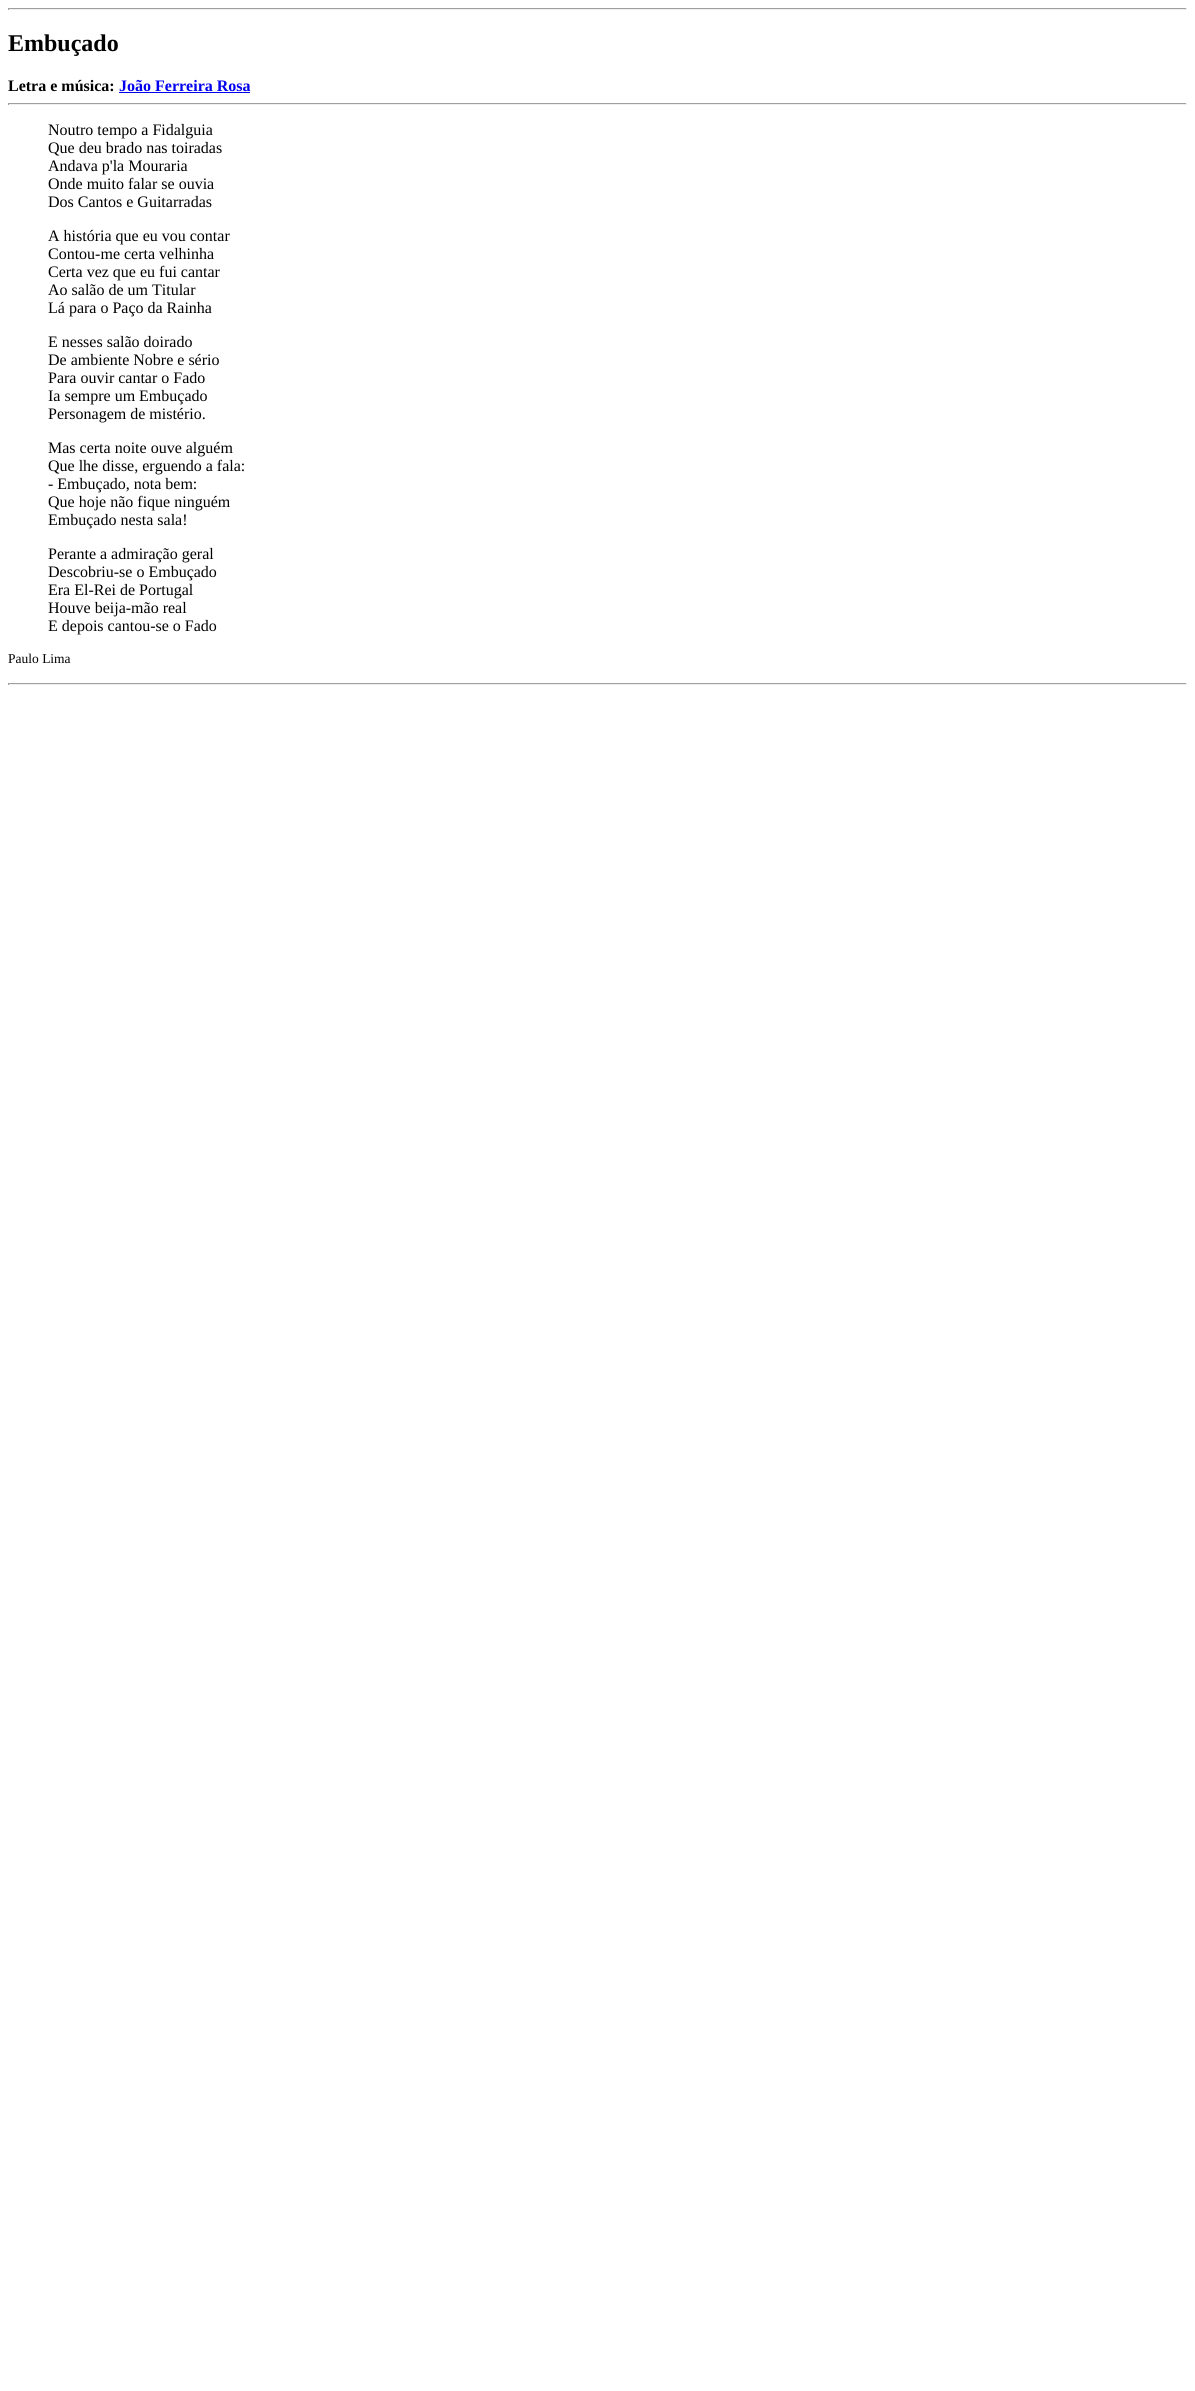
#include <cairo.h>
#include <math.h>
#include <stddef.h>


static void rgb(cairo_t *cr, int r, int g, int b)
{
	cairo_set_source_rgb(cr, r / 255.0, g / 255.0, b / 255.0);
}

static void face(cairo_t *cr, const char *family, double size, int italic, int bold)
{
	cairo_select_font_face(cr, family, italic ? CAIRO_FONT_SLANT_ITALIC : CAIRO_FONT_SLANT_NORMAL,
		bold ? CAIRO_FONT_WEIGHT_BOLD : CAIRO_FONT_WEIGHT_NORMAL);
	cairo_set_font_size(cr, size);
}

static void label(cairo_t *cr, double x, double y, const char *s)
{
	cairo_move_to(cr, x, y);
	cairo_show_text(cr, s);
}

static void rect(cairo_t *cr, double x, double y, double w, double h)
{
	cairo_rectangle(cr, x, y, w, h);
	cairo_fill(cr);
}

static void draw(cairo_t *cr) {
	rgb(cr, 255, 255, 255);
	cairo_paint(cr);
	rgb(cr, 159, 159, 159);
	rect(cr, 8, 8, 1179, 1);
	rgb(cr, 238, 238, 238);
	rect(cr, 1186, 8, 1, 2);
	rect(cr, 8, 9, 1179, 1);
	rgb(cr, 159, 159, 159);
	rect(cr, 8, 8, 1, 2);
	face(cr, "Liberation Serif", 24, 0, 1);
	rgb(cr, 0, 0, 0);
	label(cr, 8, 51, "Embuçado");
	face(cr, "Liberation Serif", 16, 0, 1);
	label(cr, 8, 91, "Letra e música:");
	rgb(cr, 0, 0, 238);
	label(cr, 119, 91, "João Ferreira Rosa");
	rect(cr, 119, 92, 131, 1);
	rgb(cr, 159, 159, 159);
	rect(cr, 8, 103, 1179, 1);
	rgb(cr, 238, 238, 238);
	rect(cr, 1186, 103, 1, 2);
	rect(cr, 8, 104, 1179, 1);
	rgb(cr, 159, 159, 159);
	rect(cr, 8, 103, 1, 2);
	face(cr, "Liberation Serif", 16, 0, 0);
	rgb(cr, 0, 0, 0);
	label(cr, 48, 135, "Noutro tempo a Fidalguia");
	label(cr, 48, 153, "Que deu brado nas toiradas");
	label(cr, 48, 171, "Andava p'la Mouraria");
	label(cr, 48, 189, "Onde muito falar se ouvia");
	label(cr, 48, 207, "Dos Cantos e Guitarradas");
	label(cr, 48, 241, "A história que eu vou contar");
	label(cr, 48, 259, "Contou-me certa velhinha");
	label(cr, 48, 277, "Certa vez que eu fui cantar");
	label(cr, 48, 295, "Ao salão de um Titular");
	label(cr, 48, 313, "Lá para o Paço da Rainha");
	label(cr, 48, 347, "E nesses salão doirado");
	label(cr, 48, 365, "De ambiente Nobre e sério");
	label(cr, 48, 383, "Para ouvir cantar o Fado");
	label(cr, 48, 401, "Ia sempre um Embuçado");
	label(cr, 48, 419, "Personagem de mistério.");
	label(cr, 48, 453, "Mas certa noite ouve alguém");
	label(cr, 48, 471, "Que lhe disse, erguendo a fala:");
	label(cr, 48, 489, "- Embuçado, nota bem:");
	label(cr, 48, 507, "Que hoje não fique ninguém");
	label(cr, 48, 525, "Embuçado nesta sala!");
	label(cr, 48, 559, "Perante a admiração geral");
	label(cr, 48, 577, "Descobriu-se o Embuçado");
	label(cr, 48, 595, "Era El-Rei de Portugal");
	label(cr, 48, 613, "Houve beija-mão real");
	label(cr, 48, 631, "E depois cantou-se o Fado");
	face(cr, "Liberation Serif", 13.5, 0, 0);
	label(cr, 8, 663, "Paulo Lima");
	rgb(cr, 159, 159, 159);
	rect(cr, 8, 683, 1179, 1);
	rgb(cr, 238, 238, 238);
	rect(cr, 1186, 683, 1, 2);
	rect(cr, 8, 684, 1179, 1);
	rgb(cr, 159, 159, 159);
	rect(cr, 8, 683, 1, 2);
}

int main(void) {
	cairo_surface_t *surface = cairo_image_surface_create(CAIRO_FORMAT_RGB24, 1195, 2391);
	cairo_t *cr = cairo_create(surface);
	cairo_font_options_t *options = cairo_font_options_create();
	cairo_font_options_set_hint_metrics(options, CAIRO_HINT_METRICS_OFF);
	cairo_font_options_set_hint_style(options, CAIRO_HINT_STYLE_NONE);
	cairo_set_font_options(cr, options);
	cairo_set_miter_limit(cr, 4);
	draw(cr);
	cairo_surface_write_to_png(surface, "render.png");
	cairo_font_options_destroy(options);
	cairo_destroy(cr);
	cairo_surface_destroy(surface);
	return 0;
}
